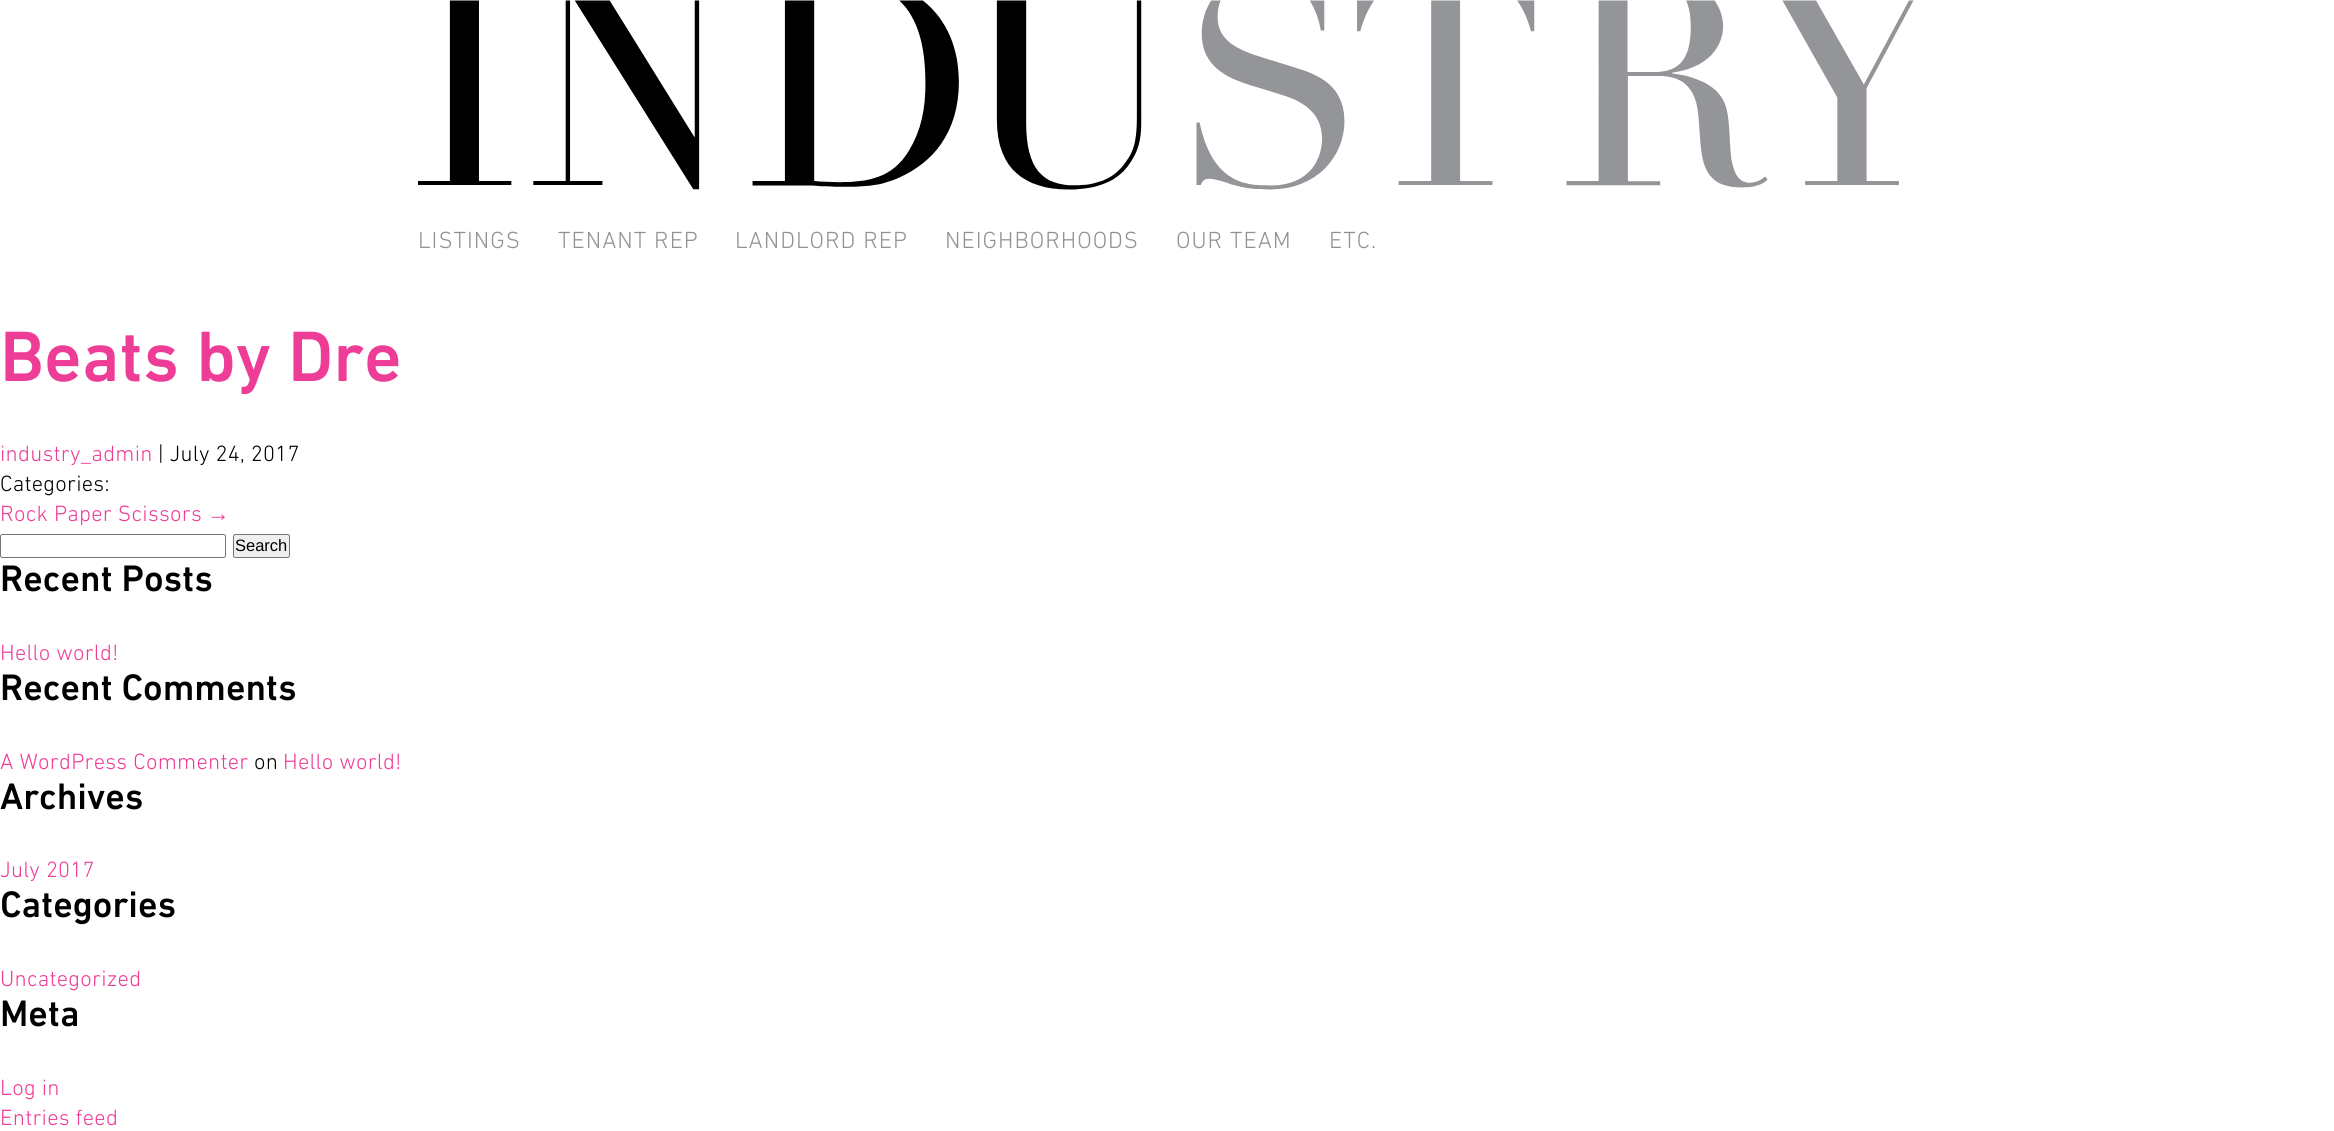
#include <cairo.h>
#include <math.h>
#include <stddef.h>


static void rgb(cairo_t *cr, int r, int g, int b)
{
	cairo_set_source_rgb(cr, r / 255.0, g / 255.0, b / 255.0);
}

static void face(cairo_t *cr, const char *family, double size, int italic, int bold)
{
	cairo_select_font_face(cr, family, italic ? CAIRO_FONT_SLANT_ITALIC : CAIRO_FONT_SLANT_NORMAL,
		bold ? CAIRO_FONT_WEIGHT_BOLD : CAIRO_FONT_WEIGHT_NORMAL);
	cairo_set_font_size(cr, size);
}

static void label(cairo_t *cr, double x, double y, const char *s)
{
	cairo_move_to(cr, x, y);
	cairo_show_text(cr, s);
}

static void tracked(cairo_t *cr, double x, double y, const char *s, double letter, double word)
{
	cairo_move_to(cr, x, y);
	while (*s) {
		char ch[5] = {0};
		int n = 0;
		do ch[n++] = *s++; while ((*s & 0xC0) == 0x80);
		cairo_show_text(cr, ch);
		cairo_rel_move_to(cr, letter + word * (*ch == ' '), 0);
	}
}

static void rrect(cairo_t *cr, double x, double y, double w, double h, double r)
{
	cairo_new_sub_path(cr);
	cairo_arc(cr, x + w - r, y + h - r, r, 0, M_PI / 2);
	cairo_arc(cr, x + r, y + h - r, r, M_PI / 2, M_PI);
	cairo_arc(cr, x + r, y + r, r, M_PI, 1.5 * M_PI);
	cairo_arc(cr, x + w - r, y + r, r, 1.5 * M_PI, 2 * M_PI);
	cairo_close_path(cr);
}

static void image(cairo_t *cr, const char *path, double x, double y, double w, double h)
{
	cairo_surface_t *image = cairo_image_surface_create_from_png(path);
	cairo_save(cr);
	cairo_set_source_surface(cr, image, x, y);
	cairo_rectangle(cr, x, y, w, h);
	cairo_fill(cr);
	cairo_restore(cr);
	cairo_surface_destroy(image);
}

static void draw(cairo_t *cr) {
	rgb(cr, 255, 255, 255);
	cairo_paint(cr);
	image(cr, "image0.png", 418, 0, 1496, 190);
	face(cr, "DIN Next Light", 23.75, 0, 0);
	rgb(cr, 145, 146, 150);
	tracked(cr, 418, 248, "LISTINGS", 1, 0);
	tracked(cr, 558, 248, "TENANT REP", 1, 0);
	tracked(cr, 735, 248, "LANDLORD REP", 1, 0);
	tracked(cr, 945, 248, "NEIGHBORHOODS", 1, 0);
	tracked(cr, 1176, 248, "OUR TEAM", 1, 0);
	tracked(cr, 1329, 248, "ETC.", 1, 0);
	face(cr, "DIN Next Medium", 72.5, 0, 0);
	rgb(cr, 238, 61, 151);
	label(cr, 0, 381, "Beats by Dre");
	face(cr, "DIN Next Light", 22.5, 0, 0);
	tracked(cr, 0, 461, "industry_admin", 0.25, 0);
	rgb(cr, 0, 0, 0);
	tracked(cr, 158, 461, "| July 24, 2017", 0.25, 0);
	tracked(cr, 0, 491, "Categories:", 0.25, 0);
	rgb(cr, 238, 61, 151);
	tracked(cr, 0, 521, "Rock Paper Scissors", 0.25, 0);
	face(cr, "Liberation Sans", 22.5, 0, 0);
	tracked(cr, 207, 521, "→", 0.25, 0);
	rrect(cr, 0.5, 534.5, 225, 23, 2);
	rgb(cr, 118, 118, 118);
	cairo_set_line_width(cr, 1);
	cairo_stroke(cr);
	rgb(cr, 239, 239, 239);
	rrect(cr, 233.5, 534.5, 56, 23, 2);
	cairo_fill_preserve(cr);
	rgb(cr, 118, 118, 118);
	cairo_stroke(cr);
	face(cr, "Liberation Sans", 16.5, 0, 0);
	rgb(cr, 0, 0, 0);
	label(cr, 235, 551, "Search");
	face(cr, "DIN Next Medium", 37.5, 0, 0);
	label(cr, 0, 591, "Recent Posts");
	face(cr, "DIN Next Light", 22.5, 0, 0);
	rgb(cr, 238, 61, 151);
	tracked(cr, 0, 660, "Hello world!", 0.25, 0);
	face(cr, "DIN Next Medium", 37.5, 0, 0);
	rgb(cr, 0, 0, 0);
	label(cr, 0, 700, "Recent Comments");
	face(cr, "DIN Next Light", 22.5, 0, 0);
	rgb(cr, 238, 61, 151);
	tracked(cr, 0, 769, "A WordPress Commenter", 0.25, 0);
	rgb(cr, 0, 0, 0);
	tracked(cr, 254, 769, "on", 0.25, 0);
	rgb(cr, 238, 61, 151);
	tracked(cr, 283, 769, "Hello world!", 0.25, 0);
	face(cr, "DIN Next Medium", 37.5, 0, 0);
	rgb(cr, 0, 0, 0);
	label(cr, 0, 809, "Archives");
	face(cr, "DIN Next Light", 22.5, 0, 0);
	rgb(cr, 238, 61, 151);
	tracked(cr, 0, 877, "July 2017", 0.25, 0);
	face(cr, "DIN Next Medium", 37.5, 0, 0);
	rgb(cr, 0, 0, 0);
	label(cr, 0, 917, "Categories");
	face(cr, "DIN Next Light", 22.5, 0, 0);
	rgb(cr, 238, 61, 151);
	tracked(cr, 0, 986, "Uncategorized", 0.25, 0);
	face(cr, "DIN Next Medium", 37.5, 0, 0);
	rgb(cr, 0, 0, 0);
	label(cr, 0, 1026, "Meta");
	face(cr, "DIN Next Light", 22.5, 0, 0);
	rgb(cr, 238, 61, 151);
	tracked(cr, 0, 1095, "Log in", 0.25, 0);
	tracked(cr, 0, 1125, "Entries feed", 0.25, 0);
}

int main(void) {
	cairo_surface_t *surface = cairo_image_surface_create(CAIRO_FORMAT_RGB24, 2334, 1131);
	cairo_t *cr = cairo_create(surface);
	cairo_font_options_t *options = cairo_font_options_create();
	cairo_font_options_set_hint_metrics(options, CAIRO_HINT_METRICS_OFF);
	cairo_font_options_set_hint_style(options, CAIRO_HINT_STYLE_NONE);
	cairo_set_font_options(cr, options);
	cairo_set_miter_limit(cr, 4);
	draw(cr);
	cairo_surface_write_to_png(surface, "render.png");
	cairo_font_options_destroy(options);
	cairo_destroy(cr);
	cairo_surface_destroy(surface);
	return 0;
}
